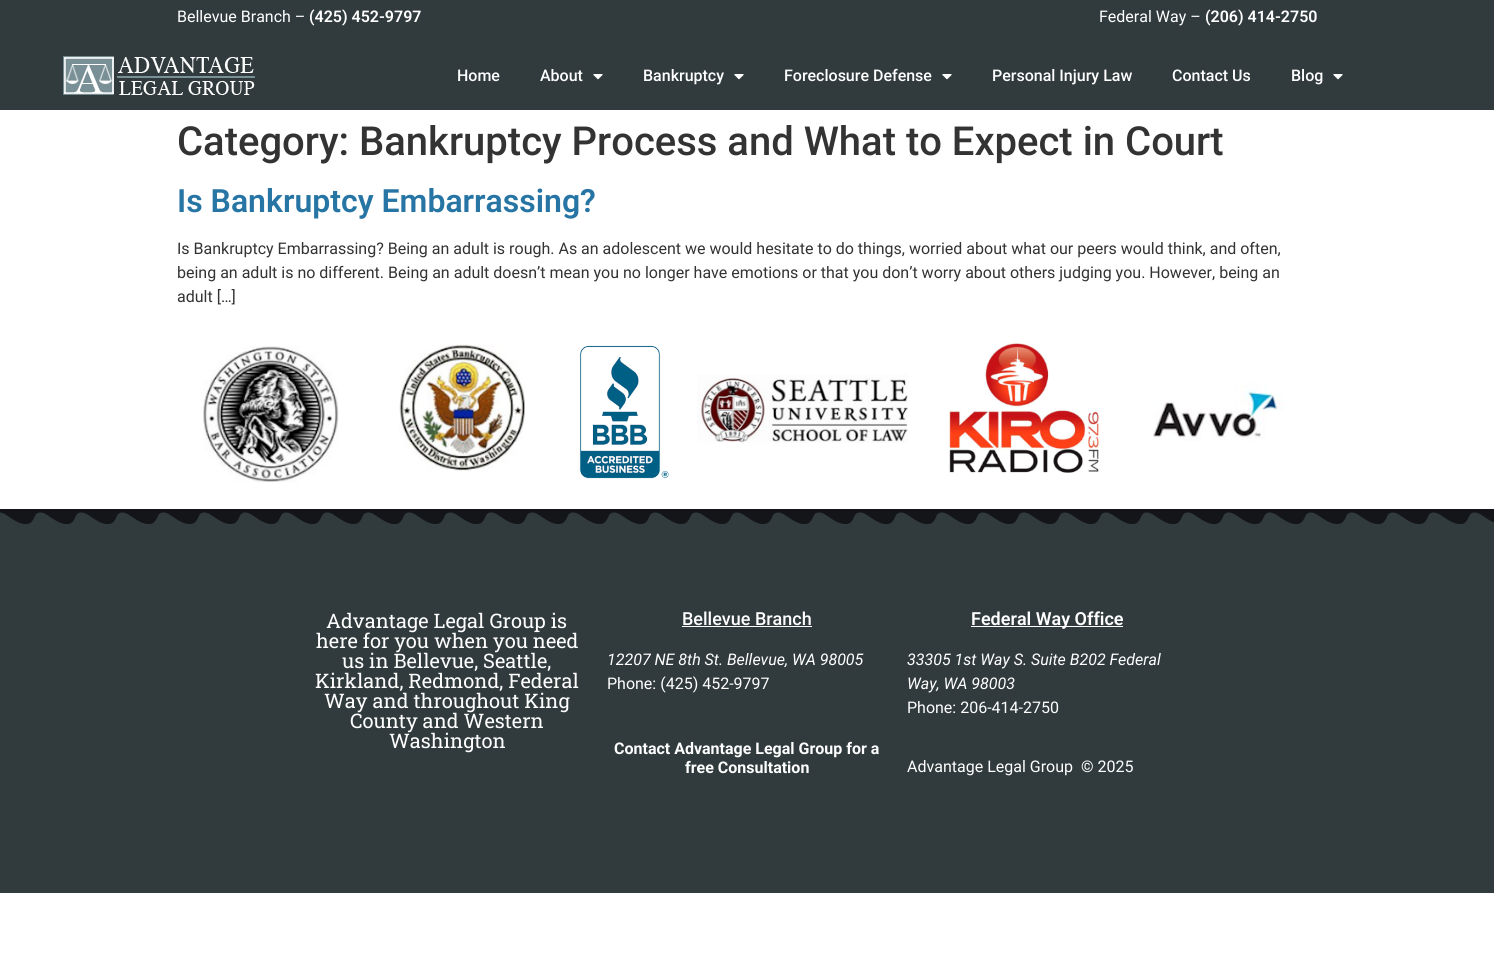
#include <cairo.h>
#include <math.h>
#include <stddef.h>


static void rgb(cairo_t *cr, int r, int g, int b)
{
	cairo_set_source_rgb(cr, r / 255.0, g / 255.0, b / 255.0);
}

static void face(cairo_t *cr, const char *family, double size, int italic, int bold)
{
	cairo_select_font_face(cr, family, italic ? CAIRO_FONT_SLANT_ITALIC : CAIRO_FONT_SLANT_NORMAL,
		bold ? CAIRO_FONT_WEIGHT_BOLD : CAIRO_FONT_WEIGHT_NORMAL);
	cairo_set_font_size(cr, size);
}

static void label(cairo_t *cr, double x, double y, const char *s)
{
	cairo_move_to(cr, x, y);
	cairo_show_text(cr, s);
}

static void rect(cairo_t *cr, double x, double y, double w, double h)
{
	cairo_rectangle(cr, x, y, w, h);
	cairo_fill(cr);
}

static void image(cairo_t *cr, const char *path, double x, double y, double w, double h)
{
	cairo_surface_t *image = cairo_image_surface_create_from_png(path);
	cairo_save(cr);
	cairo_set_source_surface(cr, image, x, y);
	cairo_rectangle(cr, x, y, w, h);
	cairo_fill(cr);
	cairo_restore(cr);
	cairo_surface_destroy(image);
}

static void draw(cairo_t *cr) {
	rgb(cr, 255, 255, 255);
	cairo_paint(cr);
	rgb(cr, 49, 59, 61);
	rect(cr, 0, 0, 1494, 110);
	face(cr, "Roboto", 16, 0, 0);
	rgb(cr, 255, 255, 255);
	label(cr, 177, 22, "Bellevue Branch –");
	face(cr, "Roboto SemiBold", 16, 0, 0);
	label(cr, 309, 22, "(425) 452-9797");
	face(cr, "Roboto", 16, 0, 0);
	label(cr, 1099, 22, "Federal Way –");
	face(cr, "Roboto SemiBold", 16, 0, 0);
	label(cr, 1205, 22, "(206) 414-2750");
	image(cr, "image0.png", 63, 56, 192, 39);
	face(cr, "Roboto Medium", 16, 0, 0);
	label(cr, 457, 81, "Home");
	label(cr, 540, 81, "About");
	image(cr, "image1.png", 593, 74, 10, 6);
	label(cr, 643, 81, "Bankruptcy");
	image(cr, "image1.png", 734, 74, 10, 6);
	label(cr, 784, 81, "Foreclosure Defense");
	image(cr, "image1.png", 942, 74, 10, 6);
	label(cr, 992, 81, "Personal Injury Law");
	label(cr, 1172, 81, "Contact Us");
	label(cr, 1291, 81, "Blog");
	image(cr, "image1.png", 1333, 74, 10, 6);
	face(cr, "Roboto Medium", 40, 0, 0);
	rgb(cr, 51, 51, 51);
	label(cr, 177, 155, "Category: Bankruptcy Process and What to Expect in Court");
	face(cr, "Roboto SemiBold", 32, 0, 0);
	rgb(cr, 39, 117, 164);
	label(cr, 177, 212, "Is Bankruptcy Embarrassing?");
	face(cr, "Roboto", 16, 0, 0);
	rgb(cr, 51, 51, 51);
	label(cr, 177, 254, "Is Bankruptcy Embarrassing? Being an adult is rough. As an adolescent we would hesitate to do things, worried about what our peers would think, and often,");
	label(cr, 177, 278, "being an adult is no different. Being an adult doesn’t mean you no longer have emotions or that you don’t worry about others judging you. However, being an");
	label(cr, 177, 302, "adult […]");
	image(cr, "image2.png", 203, 346, 136, 137);
	image(cr, "image3.png", 399, 344, 126, 127);
	image(cr, "image4.png", 579, 345, 90, 134);
	image(cr, "image5.png", 697, 374, 211, 69);
	image(cr, "image6.png", 948, 342, 153, 131);
	image(cr, "image7.png", 1153, 382, 131, 59);
	rgb(cr, 49, 59, 61);
	rect(cr, 0, 512, 1494, 381);
	image(cr, "image8.png", 0, 509, 1494, 15);
	face(cr, "Roboto Slab", 20, 0, 0);
	rgb(cr, 255, 255, 255);
	label(cr, 326, 628, "Advantage Legal Group is");
	label(cr, 316, 648, "here for you when you need");
	label(cr, 342, 668, "us in Bellevue, Seattle,");
	label(cr, 315, 688, "Kirkland, Redmond, Federal");
	label(cr, 324, 708, "Way and throughout King");
	label(cr, 350, 728, "County and Western");
	label(cr, 389, 748, "Washington");
	face(cr, "Roboto Medium", 18, 0, 0);
	label(cr, 682, 625, "Bellevue Branch");
	rect(cr, 682, 626, 130, 1);
	face(cr, "Roboto", 16, 1, 0);
	label(cr, 607, 665, "12207 NE 8th St. Bellevue, WA 98005");
	face(cr, "Roboto", 16, 0, 0);
	label(cr, 607, 689, "Phone: (425) 452-9797");
	face(cr, "Roboto", 16, 0, 1);
	label(cr, 614, 754, "Contact Advantage Legal Group for a");
	label(cr, 685, 773, "free Consultation");
	rect(cr, 971, 626, 152, 1);
	face(cr, "Roboto SemiBold", 18, 0, 0);
	label(cr, 971, 625, "Federal Way Office");
	face(cr, "Roboto", 16, 1, 0);
	label(cr, 907, 665, "33305 1st Way S. Suite B202 Federal");
	label(cr, 907, 689, "Way, WA 98003");
	face(cr, "Roboto", 16, 0, 0);
	label(cr, 907, 713, "Phone: 206-414-2750");
	label(cr, 907, 772, "Advantage Legal Group  © 2025");
}

int main(void) {
	cairo_surface_t *surface = cairo_image_surface_create(CAIRO_FORMAT_RGB24, 1494, 969);
	cairo_t *cr = cairo_create(surface);
	cairo_font_options_t *options = cairo_font_options_create();
	cairo_font_options_set_hint_metrics(options, CAIRO_HINT_METRICS_OFF);
	cairo_font_options_set_hint_style(options, CAIRO_HINT_STYLE_NONE);
	cairo_set_font_options(cr, options);
	cairo_set_miter_limit(cr, 4);
	draw(cr);
	cairo_surface_write_to_png(surface, "render.png");
	cairo_font_options_destroy(options);
	cairo_destroy(cr);
	cairo_surface_destroy(surface);
	return 0;
}
